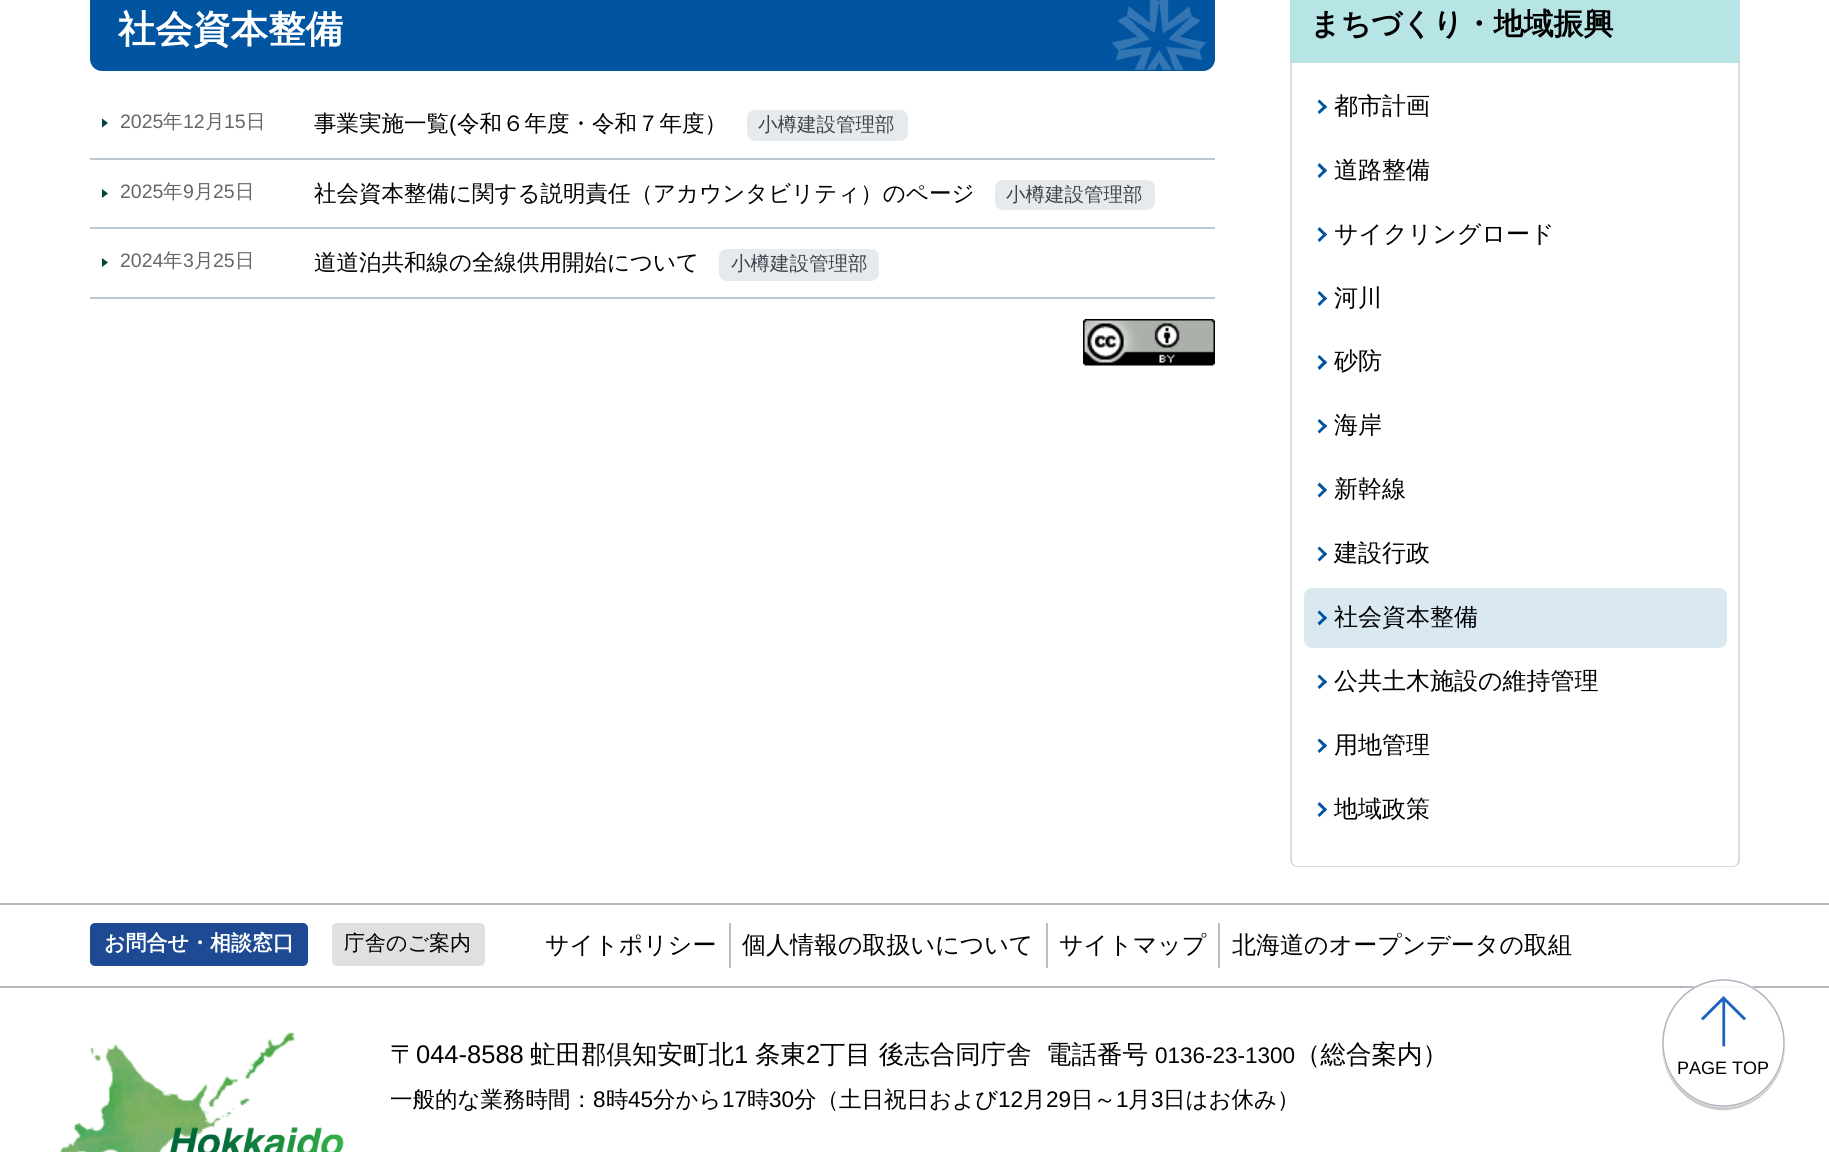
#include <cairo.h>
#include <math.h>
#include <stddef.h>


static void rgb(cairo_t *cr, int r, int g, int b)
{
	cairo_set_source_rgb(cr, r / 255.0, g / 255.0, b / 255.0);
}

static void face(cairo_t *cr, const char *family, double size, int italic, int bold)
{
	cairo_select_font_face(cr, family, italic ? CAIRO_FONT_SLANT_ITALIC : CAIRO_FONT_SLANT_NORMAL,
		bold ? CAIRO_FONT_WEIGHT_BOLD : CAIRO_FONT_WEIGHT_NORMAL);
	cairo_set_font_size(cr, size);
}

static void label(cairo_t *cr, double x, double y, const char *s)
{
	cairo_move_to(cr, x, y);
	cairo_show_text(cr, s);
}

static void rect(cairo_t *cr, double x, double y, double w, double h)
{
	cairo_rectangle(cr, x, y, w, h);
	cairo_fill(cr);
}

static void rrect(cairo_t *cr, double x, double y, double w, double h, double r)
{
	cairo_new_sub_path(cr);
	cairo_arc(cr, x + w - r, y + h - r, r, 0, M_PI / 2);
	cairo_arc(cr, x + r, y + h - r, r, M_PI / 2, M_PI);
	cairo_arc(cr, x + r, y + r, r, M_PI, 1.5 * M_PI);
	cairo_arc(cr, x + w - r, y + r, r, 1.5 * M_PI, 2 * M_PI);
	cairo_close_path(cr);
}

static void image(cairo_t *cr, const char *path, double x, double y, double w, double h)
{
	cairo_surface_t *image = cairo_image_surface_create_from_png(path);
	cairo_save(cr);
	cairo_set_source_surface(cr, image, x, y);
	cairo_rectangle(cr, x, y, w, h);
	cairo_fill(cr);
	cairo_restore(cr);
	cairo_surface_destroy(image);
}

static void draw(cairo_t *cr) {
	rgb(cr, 255, 255, 255);
	cairo_paint(cr);
	rgb(cr, 0, 84, 160);
	rrect(cr, 90, -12, 1125, 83, 12);
	cairo_fill(cr);
	image(cr, "image0.png", 1111, 0, 95, 70);
	face(cr, "WenQuanYi Zen Hei", 37.5, 0, 1);
	rgb(cr, 255, 255, 255);
	label(cr, 118, 42, "社会資本整備");
	rgb(cr, 189, 199, 209);
	rect(cr, 90, 158, 1125, 2);
	rgb(cr, 7, 68, 61);
	cairo_new_path(cr);
	cairo_move_to(cr, 102, 127.5);
	cairo_line_to(cr, 102, 118.5);
	cairo_line_to(cr, 108, 123);
	cairo_close_path(cr);
	cairo_fill(cr);
	face(cr, "Liberation Sans", 19.5, 0, 0);
	rgb(cr, 102, 102, 102);
	label(cr, 120, 128, "2025");
	face(cr, "WenQuanYi Zen Hei Medium", 19.5, 0, 0);
	label(cr, 163, 128, "年");
	face(cr, "Liberation Sans", 19.5, 0, 0);
	label(cr, 183, 128, "12");
	face(cr, "WenQuanYi Zen Hei Medium", 19.5, 0, 0);
	label(cr, 205, 128, "月");
	face(cr, "Liberation Sans", 19.5, 0, 0);
	label(cr, 224, 128, "15");
	face(cr, "WenQuanYi Zen Hei Medium", 19.5, 0, 0);
	label(cr, 246, 128, "日");
	face(cr, "WenQuanYi Zen Hei Medium", 22.5, 0, 0);
	rgb(cr, 0, 0, 0);
	label(cr, 314, 131, "事業実施一覧");
	face(cr, "Liberation Sans", 22.5, 0, 0);
	label(cr, 449, 131, "(");
	face(cr, "WenQuanYi Zen Hei Medium", 22.5, 0, 0);
	label(cr, 457, 131, "令和６年度・令和７年度）");
	rgb(cr, 230, 234, 237);
	rrect(cr, 747, 110, 161, 31, 8);
	cairo_fill(cr);
	face(cr, "WenQuanYi Zen Hei Medium", 19.5, 0, 0);
	rgb(cr, 62, 68, 76);
	label(cr, 758, 131, "小樽建設管理部");
	rgb(cr, 189, 199, 209);
	rect(cr, 90, 227, 1125, 2);
	rgb(cr, 7, 68, 61);
	cairo_new_path(cr);
	cairo_move_to(cr, 102, 198);
	cairo_line_to(cr, 102, 189);
	cairo_line_to(cr, 108, 193.5);
	cairo_close_path(cr);
	cairo_fill(cr);
	face(cr, "Liberation Sans", 19.5, 0, 0);
	rgb(cr, 102, 102, 102);
	label(cr, 120, 198, "2025");
	face(cr, "WenQuanYi Zen Hei Medium", 19.5, 0, 0);
	label(cr, 163, 198, "年");
	face(cr, "Liberation Sans", 19.5, 0, 0);
	label(cr, 183, 198, "9");
	face(cr, "WenQuanYi Zen Hei Medium", 19.5, 0, 0);
	label(cr, 194, 198, "月");
	face(cr, "Liberation Sans", 19.5, 0, 0);
	label(cr, 213, 198, "25");
	face(cr, "WenQuanYi Zen Hei Medium", 19.5, 0, 0);
	label(cr, 235, 198, "日");
	face(cr, "WenQuanYi Zen Hei Medium", 22.5, 0, 0);
	rgb(cr, 0, 0, 0);
	label(cr, 314, 201, "社会資本整備に関する説明責任（アカウンタビリティ）のページ");
	rgb(cr, 230, 234, 237);
	rrect(cr, 995, 180, 160, 30, 8);
	cairo_fill(cr);
	face(cr, "WenQuanYi Zen Hei Medium", 19.5, 0, 0);
	rgb(cr, 62, 68, 76);
	label(cr, 1006, 201, "小樽建設管理部");
	rgb(cr, 189, 199, 209);
	rect(cr, 90, 297, 1125, 2);
	rgb(cr, 7, 68, 61);
	cairo_new_path(cr);
	cairo_move_to(cr, 102, 267);
	cairo_line_to(cr, 102, 258);
	cairo_line_to(cr, 108, 262.5);
	cairo_close_path(cr);
	cairo_fill(cr);
	face(cr, "Liberation Sans", 19.5, 0, 0);
	rgb(cr, 102, 102, 102);
	label(cr, 120, 267, "2024");
	face(cr, "WenQuanYi Zen Hei Medium", 19.5, 0, 0);
	label(cr, 163, 267, "年");
	face(cr, "Liberation Sans", 19.5, 0, 0);
	label(cr, 183, 267, "3");
	face(cr, "WenQuanYi Zen Hei Medium", 19.5, 0, 0);
	label(cr, 194, 267, "月");
	face(cr, "Liberation Sans", 19.5, 0, 0);
	label(cr, 213, 267, "25");
	face(cr, "WenQuanYi Zen Hei Medium", 19.5, 0, 0);
	label(cr, 235, 267, "日");
	face(cr, "WenQuanYi Zen Hei Medium", 22.5, 0, 0);
	rgb(cr, 0, 0, 0);
	label(cr, 314, 270, "道道泊共和線の全線供用開始について");
	rgb(cr, 230, 234, 237);
	rrect(cr, 719, 249, 160, 32, 8);
	cairo_fill(cr);
	face(cr, "WenQuanYi Zen Hei Medium", 19.5, 0, 0);
	rgb(cr, 62, 68, 76);
	label(cr, 731, 270, "小樽建設管理部");
	image(cr, "image1.png", 1083, 319, 132, 47);
	rgb(cr, 183, 229, 229);
	rect(cr, 1290, 0, 450, 63);
	face(cr, "WenQuanYi Zen Hei", 30, 0, 1);
	rgb(cr, 0, 0, 0);
	label(cr, 1310, 34, "まちづくり・地域振興");
	rgb(cr, 219, 219, 219);
	cairo_set_fill_rule(cr, CAIRO_FILL_RULE_EVEN_ODD);
	cairo_new_path(cr);
	cairo_move_to(cr, 1290, 63);
	cairo_line_to(cr, 1740, 63);
	cairo_line_to(cr, 1740, 860);
	cairo_curve_to(cr, 1740, 864, 1737, 867, 1732, 867);
	cairo_line_to(cr, 1298, 867);
	cairo_curve_to(cr, 1293, 867, 1290, 864, 1290, 860);
	cairo_close_path(cr);
	cairo_move_to(cr, 1292, 63);
	cairo_line_to(cr, 1738, 63);
	cairo_line_to(cr, 1738, 860);
	cairo_curve_to(cr, 1738, 863, 1736, 866, 1732, 866);
	cairo_line_to(cr, 1298, 866);
	cairo_curve_to(cr, 1294, 866, 1292, 863, 1292, 860);
	cairo_close_path(cr);
	cairo_fill(cr);
	rgb(cr, 0, 84, 160);
	cairo_set_fill_rule(cr, CAIRO_FILL_RULE_WINDING);
	cairo_new_path(cr);
	cairo_move_to(cr, 1319.5, 99.5);
	cairo_line_to(cr, 1327, 107);
	cairo_line_to(cr, 1325, 109);
	cairo_line_to(cr, 1317.5, 101.5);
	cairo_close_path(cr);
	cairo_fill(cr);
	cairo_new_path(cr);
	cairo_move_to(cr, 1325, 104.5);
	cairo_line_to(cr, 1327, 107);
	cairo_line_to(cr, 1319.5, 114);
	cairo_line_to(cr, 1317.5, 112);
	cairo_close_path(cr);
	cairo_fill(cr);
	face(cr, "WenQuanYi Zen Hei Medium", 24, 0, 0);
	rgb(cr, 0, 0, 0);
	label(cr, 1334, 114, "都市計画");
	rgb(cr, 0, 84, 160);
	cairo_new_path(cr);
	cairo_move_to(cr, 1319.5, 163);
	cairo_line_to(cr, 1327, 170.5);
	cairo_line_to(cr, 1325, 173);
	cairo_line_to(cr, 1317.5, 165.5);
	cairo_close_path(cr);
	cairo_fill(cr);
	cairo_new_path(cr);
	cairo_move_to(cr, 1325, 168.5);
	cairo_line_to(cr, 1327, 170.5);
	cairo_line_to(cr, 1319.5, 178);
	cairo_line_to(cr, 1317.5, 176);
	cairo_close_path(cr);
	cairo_fill(cr);
	rgb(cr, 0, 0, 0);
	label(cr, 1334, 178, "道路整備");
	rgb(cr, 0, 84, 160);
	cairo_new_path(cr);
	cairo_move_to(cr, 1319.5, 227);
	cairo_line_to(cr, 1327, 234.5);
	cairo_line_to(cr, 1325, 236.5);
	cairo_line_to(cr, 1317.5, 229.5);
	cairo_close_path(cr);
	cairo_fill(cr);
	cairo_new_path(cr);
	cairo_move_to(cr, 1325, 232.5);
	cairo_line_to(cr, 1327, 234.5);
	cairo_line_to(cr, 1319.5, 242);
	cairo_line_to(cr, 1317.5, 240);
	cairo_close_path(cr);
	cairo_fill(cr);
	rgb(cr, 0, 0, 0);
	label(cr, 1334, 242, "サイクリングロード");
	rgb(cr, 0, 84, 160);
	cairo_new_path(cr);
	cairo_move_to(cr, 1319.5, 291);
	cairo_line_to(cr, 1327, 298.5);
	cairo_line_to(cr, 1325, 300.5);
	cairo_line_to(cr, 1317.5, 293);
	cairo_close_path(cr);
	cairo_fill(cr);
	cairo_new_path(cr);
	cairo_move_to(cr, 1325, 296.5);
	cairo_line_to(cr, 1327, 298.5);
	cairo_line_to(cr, 1319.5, 306);
	cairo_line_to(cr, 1317.5, 304);
	cairo_close_path(cr);
	cairo_fill(cr);
	rgb(cr, 0, 0, 0);
	label(cr, 1334, 306, "河川");
	rgb(cr, 0, 84, 160);
	cairo_new_path(cr);
	cairo_move_to(cr, 1319.5, 355);
	cairo_line_to(cr, 1327, 362.5);
	cairo_line_to(cr, 1325, 364.5);
	cairo_line_to(cr, 1317.5, 357);
	cairo_close_path(cr);
	cairo_fill(cr);
	cairo_new_path(cr);
	cairo_move_to(cr, 1325, 360);
	cairo_line_to(cr, 1327, 362.5);
	cairo_line_to(cr, 1319.5, 370);
	cairo_line_to(cr, 1317.5, 367.5);
	cairo_close_path(cr);
	cairo_fill(cr);
	rgb(cr, 0, 0, 0);
	label(cr, 1334, 369, "砂防");
	rgb(cr, 0, 84, 160);
	cairo_new_path(cr);
	cairo_move_to(cr, 1319.5, 419);
	cairo_line_to(cr, 1327, 426);
	cairo_line_to(cr, 1325, 428.5);
	cairo_line_to(cr, 1317.5, 421);
	cairo_close_path(cr);
	cairo_fill(cr);
	cairo_new_path(cr);
	cairo_move_to(cr, 1325, 424);
	cairo_line_to(cr, 1327, 426);
	cairo_line_to(cr, 1319.5, 433.5);
	cairo_line_to(cr, 1317.5, 431.5);
	cairo_close_path(cr);
	cairo_fill(cr);
	rgb(cr, 0, 0, 0);
	label(cr, 1334, 433, "海岸");
	rgb(cr, 0, 84, 160);
	cairo_new_path(cr);
	cairo_move_to(cr, 1319.5, 482.5);
	cairo_line_to(cr, 1327, 490);
	cairo_line_to(cr, 1325, 492);
	cairo_line_to(cr, 1317.5, 485);
	cairo_close_path(cr);
	cairo_fill(cr);
	cairo_new_path(cr);
	cairo_move_to(cr, 1325, 488);
	cairo_line_to(cr, 1327, 490);
	cairo_line_to(cr, 1319.5, 497.5);
	cairo_line_to(cr, 1317.5, 495.5);
	cairo_close_path(cr);
	cairo_fill(cr);
	rgb(cr, 0, 0, 0);
	label(cr, 1334, 497, "新幹線");
	rgb(cr, 0, 84, 160);
	cairo_new_path(cr);
	cairo_move_to(cr, 1319.5, 546.5);
	cairo_line_to(cr, 1327, 554);
	cairo_line_to(cr, 1325, 556);
	cairo_line_to(cr, 1317.5, 548.5);
	cairo_close_path(cr);
	cairo_fill(cr);
	cairo_new_path(cr);
	cairo_move_to(cr, 1325, 552);
	cairo_line_to(cr, 1327, 554);
	cairo_line_to(cr, 1319.5, 561.5);
	cairo_line_to(cr, 1317.5, 559.5);
	cairo_close_path(cr);
	cairo_fill(cr);
	rgb(cr, 0, 0, 0);
	label(cr, 1334, 561, "建設行政");
	rgb(cr, 218, 232, 242);
	rrect(cr, 1304, 588, 423, 60, 8);
	cairo_fill(cr);
	rgb(cr, 0, 84, 160);
	cairo_new_path(cr);
	cairo_move_to(cr, 1319.5, 610.5);
	cairo_line_to(cr, 1327, 618);
	cairo_line_to(cr, 1325, 620);
	cairo_line_to(cr, 1317.5, 612.5);
	cairo_close_path(cr);
	cairo_fill(cr);
	cairo_new_path(cr);
	cairo_move_to(cr, 1325, 616);
	cairo_line_to(cr, 1327, 618);
	cairo_line_to(cr, 1319.5, 625.5);
	cairo_line_to(cr, 1317.5, 623);
	cairo_close_path(cr);
	cairo_fill(cr);
	rgb(cr, 0, 0, 0);
	label(cr, 1334, 625, "社会資本整備");
	rgb(cr, 0, 84, 160);
	cairo_new_path(cr);
	cairo_move_to(cr, 1319.5, 674.5);
	cairo_line_to(cr, 1327, 682);
	cairo_line_to(cr, 1325, 684);
	cairo_line_to(cr, 1317.5, 676.5);
	cairo_close_path(cr);
	cairo_fill(cr);
	cairo_new_path(cr);
	cairo_move_to(cr, 1325, 679.5);
	cairo_line_to(cr, 1327, 682);
	cairo_line_to(cr, 1319.5, 689);
	cairo_line_to(cr, 1317.5, 687);
	cairo_close_path(cr);
	cairo_fill(cr);
	rgb(cr, 0, 0, 0);
	label(cr, 1334, 689, "公共土木施設の維持管理");
	rgb(cr, 0, 84, 160);
	cairo_new_path(cr);
	cairo_move_to(cr, 1319.5, 738.5);
	cairo_line_to(cr, 1327, 745.5);
	cairo_line_to(cr, 1325, 748);
	cairo_line_to(cr, 1317.5, 740.5);
	cairo_close_path(cr);
	cairo_fill(cr);
	cairo_new_path(cr);
	cairo_move_to(cr, 1325, 743.5);
	cairo_line_to(cr, 1327, 745.5);
	cairo_line_to(cr, 1319.5, 753);
	cairo_line_to(cr, 1317.5, 751);
	cairo_close_path(cr);
	cairo_fill(cr);
	rgb(cr, 0, 0, 0);
	label(cr, 1334, 753, "用地管理");
	rgb(cr, 0, 84, 160);
	cairo_new_path(cr);
	cairo_move_to(cr, 1319.5, 802);
	cairo_line_to(cr, 1327, 809.5);
	cairo_line_to(cr, 1325, 811.5);
	cairo_line_to(cr, 1317.5, 804.5);
	cairo_close_path(cr);
	cairo_fill(cr);
	cairo_new_path(cr);
	cairo_move_to(cr, 1325, 807.5);
	cairo_line_to(cr, 1327, 809.5);
	cairo_line_to(cr, 1319.5, 817);
	cairo_line_to(cr, 1317.5, 815);
	cairo_close_path(cr);
	cairo_fill(cr);
	rgb(cr, 0, 0, 0);
	label(cr, 1334, 817, "地域政策");
	rgb(cr, 181, 184, 186);
	rect(cr, 0, 903, 1829, 2);
	rect(cr, 0, 986, 1829, 2);
	rgb(cr, 29, 74, 147);
	rrect(cr, 90, 923, 218, 43, 5);
	cairo_fill(cr);
	face(cr, "WenQuanYi Zen Hei", 21, 0, 1);
	rgb(cr, 255, 255, 255);
	label(cr, 104, 950, "お問合せ・相談窓口");
	rgb(cr, 224, 224, 224);
	rrect(cr, 332, 923, 153, 43, 5);
	cairo_fill(cr);
	face(cr, "WenQuanYi Zen Hei Medium", 21, 0, 0);
	rgb(cr, 0, 0, 0);
	label(cr, 344, 950, "庁舎のご案内");
	rgb(cr, 187, 188, 188);
	rect(cr, 729, 923, 2, 45);
	face(cr, "WenQuanYi Zen Hei Medium", 24, 0, 0);
	rgb(cr, 0, 0, 0);
	label(cr, 545, 953, "サイトポリシー");
	rgb(cr, 187, 188, 188);
	rect(cr, 1046, 923, 2, 45);
	rgb(cr, 0, 0, 0);
	label(cr, 742, 953, "個人情報の取扱いについて");
	rgb(cr, 187, 188, 188);
	rect(cr, 1218, 923, 2, 45);
	rgb(cr, 0, 0, 0);
	label(cr, 1059, 953, "サイトマップ");
	label(cr, 1232, 953, "北海道のオープンデータの取組");
	image(cr, "image2.png", 59, 1032, 236, 120);
	face(cr, "WenQuanYi Zen Hei Medium", 25.5, 0, 0);
	label(cr, 390, 1063, "〒");
	face(cr, "Liberation Sans", 25.5, 0, 0);
	label(cr, 416, 1063, "044-8588");
	face(cr, "WenQuanYi Zen Hei Medium", 25.5, 0, 0);
	label(cr, 530, 1063, "虻田郡倶知安町北");
	face(cr, "Liberation Sans", 25.5, 0, 0);
	label(cr, 734, 1063, "1");
	face(cr, "WenQuanYi Zen Hei Medium", 25.5, 0, 0);
	label(cr, 755, 1063, "条東");
	face(cr, "Liberation Sans", 25.5, 0, 0);
	label(cr, 806, 1063, "2");
	face(cr, "WenQuanYi Zen Hei Medium", 25.5, 0, 0);
	label(cr, 820, 1063, "丁目 後志合同庁舎");
	label(cr, 1046, 1063, "電話番号");
	face(cr, "Liberation Sans", 22.5, 0, 0);
	label(cr, 1155, 1063, "0136-23-1300");
	face(cr, "WenQuanYi Zen Hei Medium", 25.5, 0, 0);
	label(cr, 1295, 1063, "（総合案内）");
	face(cr, "WenQuanYi Zen Hei Medium", 22.5, 0, 0);
	label(cr, 390, 1107, "一般的な業務時間：");
	face(cr, "Liberation Sans", 22.5, 0, 0);
	label(cr, 593, 1107, "8");
	face(cr, "WenQuanYi Zen Hei Medium", 22.5, 0, 0);
	label(cr, 606, 1107, "時");
	face(cr, "Liberation Sans", 22.5, 0, 0);
	label(cr, 628, 1107, "45");
	face(cr, "WenQuanYi Zen Hei Medium", 22.5, 0, 0);
	label(cr, 653, 1107, "分から");
	face(cr, "Liberation Sans", 22.5, 0, 0);
	label(cr, 722, 1107, "17");
	face(cr, "WenQuanYi Zen Hei Medium", 22.5, 0, 0);
	label(cr, 747, 1107, "時");
	face(cr, "Liberation Sans", 22.5, 0, 0);
	label(cr, 769, 1107, "30");
	face(cr, "WenQuanYi Zen Hei Medium", 22.5, 0, 0);
	label(cr, 794, 1107, "分（土日祝日および");
	face(cr, "Liberation Sans", 22.5, 0, 0);
	label(cr, 998, 1107, "12");
	face(cr, "WenQuanYi Zen Hei Medium", 22.5, 0, 0);
	label(cr, 1023, 1107, "月");
	face(cr, "Liberation Sans", 22.5, 0, 0);
	label(cr, 1046, 1107, "29");
	face(cr, "WenQuanYi Zen Hei Medium", 22.5, 0, 0);
	label(cr, 1071, 1107, "日～");
	face(cr, "Liberation Sans", 22.5, 0, 0);
	label(cr, 1116, 1107, "1");
	face(cr, "WenQuanYi Zen Hei Medium", 22.5, 0, 0);
	label(cr, 1128, 1107, "月");
	face(cr, "Liberation Sans", 22.5, 0, 0);
	label(cr, 1151, 1107, "3");
	face(cr, "WenQuanYi Zen Hei Medium", 22.5, 0, 0);
	label(cr, 1163, 1107, "日はお休み）");
	image(cr, "image3.png", 170, 1127, 174, 25);
	rgb(cr, 204, 204, 204);
	cairo_new_path(cr);
	cairo_move_to(cr, 1785, 1045);
	cairo_curve_to(cr, 1784, 1079, 1757, 1107, 1724, 1107);
	cairo_curve_to(cr, 1690, 1107, 1663, 1079, 1662, 1045);
	cairo_curve_to(cr, 1661, 1089, 1705, 1124, 1747, 1105);
	cairo_curve_to(cr, 1758, 1100, 1768, 1092, 1774, 1082);
	cairo_curve_to(cr, 1782, 1071, 1785, 1058, 1785, 1045);
	cairo_close_path(cr);
	cairo_fill(cr);
	cairo_set_source_rgba(cr, 1, 1, 1, 0.9);
	cairo_new_path(cr);
	cairo_move_to(cr, 1723.5, 979);
	cairo_curve_to(cr, 1757.5, 979, 1785, 1007.5, 1785, 1043);
	cairo_curve_to(cr, 1785, 1078.5, 1757.5, 1107, 1723.5, 1107);
	cairo_curve_to(cr, 1689.5, 1107, 1662, 1078.5, 1662, 1043);
	cairo_curve_to(cr, 1662, 1007.5, 1689.5, 979, 1723.5, 979);
	cairo_close_path(cr);
	cairo_fill(cr);
	cairo_new_path(cr);
	cairo_move_to(cr, 1723.5, 980);
	cairo_curve_to(cr, 1757, 980, 1784, 1008.5, 1784, 1043);
	cairo_curve_to(cr, 1784, 1078, 1757, 1106, 1723.5, 1106);
	cairo_curve_to(cr, 1690, 1106, 1663, 1078, 1663, 1043);
	cairo_curve_to(cr, 1663, 1008.5, 1690, 980, 1723.5, 980);
	cairo_close_path(cr);
	rgb(cr, 172, 181, 191);
	cairo_set_line_width(cr, 1.5);
	cairo_stroke(cr);
	image(cr, "image4.png", 1701, 996, 45, 51);
	face(cr, "Liberation Sans", 18, 0, 0);
	rgb(cr, 0, 0, 0);
	label(cr, 1677, 1074, "PAGE TOP");
}

int main(void) {
	cairo_surface_t *surface = cairo_image_surface_create(CAIRO_FORMAT_RGB24, 1829, 1152);
	cairo_t *cr = cairo_create(surface);
	cairo_font_options_t *options = cairo_font_options_create();
	cairo_font_options_set_hint_metrics(options, CAIRO_HINT_METRICS_OFF);
	cairo_font_options_set_hint_style(options, CAIRO_HINT_STYLE_NONE);
	cairo_set_font_options(cr, options);
	cairo_set_miter_limit(cr, 4);
	draw(cr);
	cairo_surface_write_to_png(surface, "render.png");
	cairo_font_options_destroy(options);
	cairo_destroy(cr);
	cairo_surface_destroy(surface);
	return 0;
}
